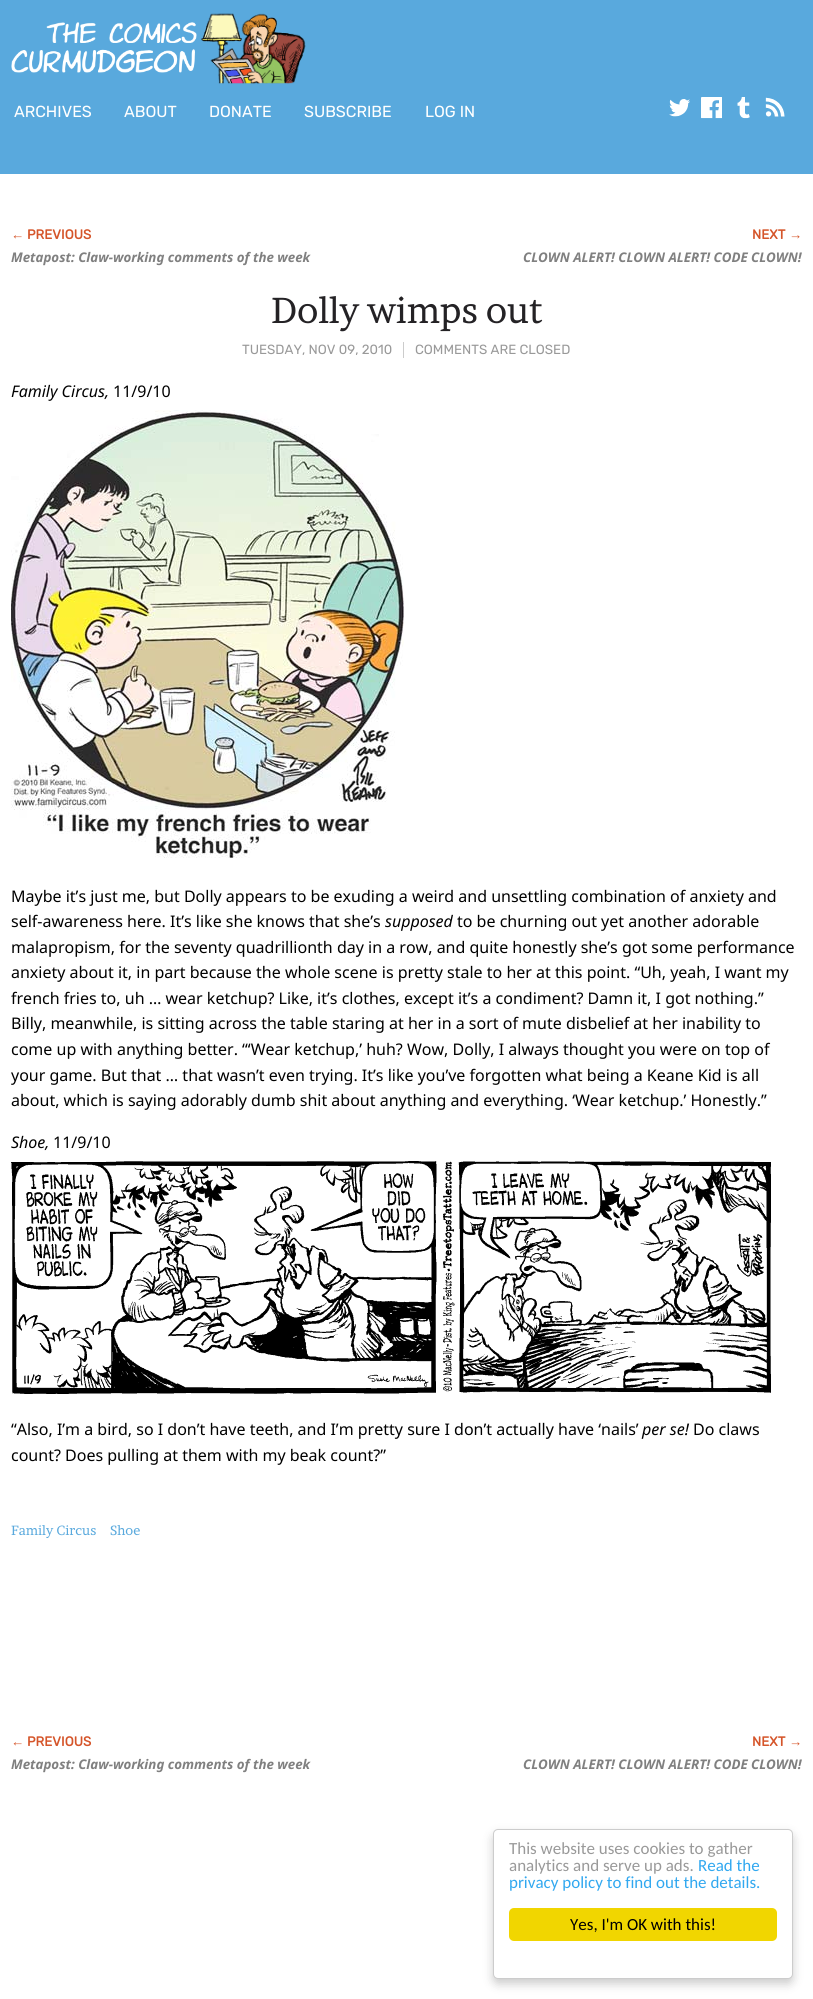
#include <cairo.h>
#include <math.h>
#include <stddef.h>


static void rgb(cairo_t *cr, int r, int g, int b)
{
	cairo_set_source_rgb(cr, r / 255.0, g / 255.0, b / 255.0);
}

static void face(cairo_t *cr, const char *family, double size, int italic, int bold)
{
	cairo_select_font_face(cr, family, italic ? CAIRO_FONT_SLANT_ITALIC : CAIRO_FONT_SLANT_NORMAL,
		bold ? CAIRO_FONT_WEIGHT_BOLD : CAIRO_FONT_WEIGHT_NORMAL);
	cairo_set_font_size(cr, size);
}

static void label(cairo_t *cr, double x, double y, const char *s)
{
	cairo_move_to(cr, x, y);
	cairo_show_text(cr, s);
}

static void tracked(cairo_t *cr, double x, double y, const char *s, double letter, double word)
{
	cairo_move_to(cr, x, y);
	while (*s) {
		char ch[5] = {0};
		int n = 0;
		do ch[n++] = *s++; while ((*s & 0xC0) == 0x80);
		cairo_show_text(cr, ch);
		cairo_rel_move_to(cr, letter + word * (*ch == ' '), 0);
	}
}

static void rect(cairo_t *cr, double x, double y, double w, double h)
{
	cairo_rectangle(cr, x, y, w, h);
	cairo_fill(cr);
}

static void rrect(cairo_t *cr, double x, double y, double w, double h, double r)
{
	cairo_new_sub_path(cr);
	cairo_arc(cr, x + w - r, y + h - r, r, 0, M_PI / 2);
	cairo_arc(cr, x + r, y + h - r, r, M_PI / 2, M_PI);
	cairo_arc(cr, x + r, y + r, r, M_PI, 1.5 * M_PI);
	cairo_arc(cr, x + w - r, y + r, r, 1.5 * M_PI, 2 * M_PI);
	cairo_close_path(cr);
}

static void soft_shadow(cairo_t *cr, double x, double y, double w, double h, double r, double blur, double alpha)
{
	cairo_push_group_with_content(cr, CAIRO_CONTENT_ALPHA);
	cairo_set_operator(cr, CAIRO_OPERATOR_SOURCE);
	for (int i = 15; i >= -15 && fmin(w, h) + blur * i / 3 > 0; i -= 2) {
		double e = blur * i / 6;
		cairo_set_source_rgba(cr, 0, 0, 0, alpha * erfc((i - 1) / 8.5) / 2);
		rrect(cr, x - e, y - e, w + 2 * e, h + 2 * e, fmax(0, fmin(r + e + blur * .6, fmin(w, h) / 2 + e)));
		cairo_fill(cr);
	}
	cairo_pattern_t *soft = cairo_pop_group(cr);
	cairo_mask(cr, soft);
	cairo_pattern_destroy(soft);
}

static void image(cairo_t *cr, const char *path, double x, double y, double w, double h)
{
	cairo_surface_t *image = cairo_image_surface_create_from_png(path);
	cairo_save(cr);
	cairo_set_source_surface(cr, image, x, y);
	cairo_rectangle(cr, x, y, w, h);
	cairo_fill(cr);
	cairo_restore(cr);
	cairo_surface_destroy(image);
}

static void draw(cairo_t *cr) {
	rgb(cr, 255, 255, 255);
	cairo_paint(cr);
	rgb(cr, 89, 169, 221);
	rect(cr, 0, 0, 813, 174);
	image(cr, "image0.png", 11, 22, 186, 51);
	image(cr, "image1.png", 201, 13, 105, 71);
	face(cr, "Rubik Light", 16, 0, 0);
	rgb(cr, 255, 255, 255);
	label(cr, 14, 117, "ARCHIVES");
	label(cr, 124, 117, "ABOUT");
	label(cr, 209, 117, "DONATE");
	label(cr, 304, 117, "SUBSCRIBE");
	label(cr, 425, 117, "LOG IN");
	image(cr, "image2.png", 669, 99, 21, 18);
	image(cr, "image3.png", 701, 97, 21, 22);
	image(cr, "image4.png", 737, 97, 13, 22);
	image(cr, "image5.png", 765, 97, 20, 20);
	face(cr, "Liberation Sans", 13.3, 0, 1);
	rgb(cr, 213, 85, 42);
	label(cr, 11, 239, "←");
	face(cr, "Rubik", 13.3, 0, 1);
	label(cr, 27, 239, "PREVIOUS");
	face(cr, "Noto Sans", 13.3, 1, 1);
	rgb(cr, 128, 128, 128);
	label(cr, 11, 262, "Metapost: Claw-working comments of the week");
	face(cr, "Rubik", 13.3, 0, 1);
	rgb(cr, 213, 85, 42);
	label(cr, 752, 239, "NEXT");
	face(cr, "Liberation Sans", 13.3, 0, 1);
	label(cr, 789, 239, "→");
	face(cr, "Noto Sans", 13.3, 1, 1);
	rgb(cr, 128, 128, 128);
	label(cr, 523, 262, "CLOWN ALERT! CLOWN ALERT! CODE CLOWN!");
	face(cr, "Brawler", 36, 0, 0);
	rgb(cr, 36, 34, 37);
	tracked(cr, 271, 323, "Dolly wimps out", 0, -1);
	face(cr, "Rubik Light", 13.3, 0, 0);
	rgb(cr, 153, 153, 153);
	label(cr, 242, 354, "TUESDAY, NOV 09, 2010");
	rgb(cr, 204, 204, 204);
	rect(cr, 403, 342, 1, 16);
	rgb(cr, 153, 153, 153);
	label(cr, 415, 354, "COMMENTS ARE CLOSED");
	face(cr, "Noto Sans", 16, 1, 0);
	rgb(cr, 0, 0, 0);
	label(cr, 11, 397, "Family Circus,");
	face(cr, "Noto Sans", 16, 0, 0);
	label(cr, 113, 397, "11/9/10");
	image(cr, "image6.png", 11, 410, 393, 448);
	label(cr, 11, 902, "Maybe it’s just me, but Dolly appears to be exuding a weird and unsettling combination of anxiety and");
	label(cr, 11, 927, "self-awareness here. It’s like she knows that she’s");
	face(cr, "Noto Sans", 16, 1, 0);
	label(cr, 385, 927, "supposed");
	face(cr, "Noto Sans", 16, 0, 0);
	label(cr, 457, 927, "to be churning out yet another adorable");
	label(cr, 11, 953, "malapropism, for the seventy quadrillionth day in a row, and quite honestly she’s got some performance");
	label(cr, 11, 978, "anxiety about it, in part because the whole scene is pretty stale to her at this point. “Uh, yeah, I want my");
	label(cr, 11, 1004, "french fries to, uh … wear ketchup? Like, it’s clothes, except it’s a condiment? Damn it, I got nothing.”");
	label(cr, 11, 1029, "Billy, meanwhile, is sitting across the table staring at her in a sort of mute disbelief at her inability to");
	label(cr, 11, 1055, "come up with anything better. “‘Wear ketchup,’ huh? Wow, Dolly, I always thought you were on top of");
	label(cr, 11, 1081, "your game. But that … that wasn’t even trying. It’s like you’ve forgotten what being a Keane Kid is all");
	label(cr, 11, 1106, "about, which is saying adorably dumb shit about anything and everything. ‘Wear ketchup.’ Honestly.”");
	face(cr, "Noto Sans", 16, 1, 0);
	label(cr, 11, 1148, "Shoe,");
	face(cr, "Noto Sans", 16, 0, 0);
	label(cr, 53, 1148, "11/9/10");
	image(cr, "image7.png", 11, 1161, 760, 233);
	label(cr, 11, 1435, "“Also, I’m a bird, so I don’t have teeth, and I’m pretty sure I don’t actually have ‘nails’");
	face(cr, "Noto Sans", 16, 1, 0);
	label(cr, 642, 1435, "per se!");
	face(cr, "Noto Sans", 16, 0, 0);
	label(cr, 693, 1435, "Do claws");
	label(cr, 11, 1461, "count? Does pulling at them with my beak count?”");
	face(cr, "Brawler", 13.3, 0, 0);
	rgb(cr, 89, 169, 221);
	label(cr, 11, 1535, "Family Circus");
	label(cr, 110, 1535, "Shoe");
	face(cr, "Liberation Sans", 13.3, 0, 1);
	rgb(cr, 213, 85, 42);
	label(cr, 11, 1746, "←");
	face(cr, "Rubik", 13.3, 0, 1);
	label(cr, 27, 1746, "PREVIOUS");
	face(cr, "Noto Sans", 13.3, 1, 1);
	rgb(cr, 128, 128, 128);
	label(cr, 11, 1769, "Metapost: Claw-working comments of the week");
	face(cr, "Rubik", 13.3, 0, 1);
	rgb(cr, 213, 85, 42);
	label(cr, 752, 1746, "NEXT");
	face(cr, "Liberation Sans", 13.3, 0, 1);
	label(cr, 789, 1746, "→");
	face(cr, "Noto Sans", 13.3, 1, 1);
	rgb(cr, 128, 128, 128);
	label(cr, 523, 1769, "CLOWN ALERT! CLOWN ALERT! CODE CLOWN!");
	rgb(cr, 0, 0, 0);
	soft_shadow(cr, 493, 1834, 300, 150, 5, 5, 0.2);
	rgb(cr, 255, 255, 255);
	rrect(cr, 493.5, 1829.5, 299, 149, 4.5);
	cairo_fill_preserve(cr);
	rgb(cr, 204, 204, 204);
	cairo_set_line_width(cr, 1);
	cairo_stroke(cr);
	face(cr, "Carlito", 17, 0, 0);
	rgb(cr, 153, 153, 153);
	label(cr, 509, 1854, "This website uses cookies to gather");
	label(cr, 509, 1871, "analytics and serve up ads.");
	rgb(cr, 49, 168, 240);
	label(cr, 698, 1871, "Read the");
	label(cr, 509, 1888, "privacy policy to find out the details.");
	rgb(cr, 241, 214, 0);
	rrect(cr, 509, 1908, 268, 33, 5);
	cairo_fill(cr);
	rgb(cr, 0, 0, 0);
	label(cr, 570, 1930, "Yes, I'm OK with this!");
}

int main(void) {
	cairo_surface_t *surface = cairo_image_surface_create(CAIRO_FORMAT_RGB24, 813, 1999);
	cairo_t *cr = cairo_create(surface);
	cairo_font_options_t *options = cairo_font_options_create();
	cairo_font_options_set_hint_metrics(options, CAIRO_HINT_METRICS_OFF);
	cairo_font_options_set_hint_style(options, CAIRO_HINT_STYLE_NONE);
	cairo_set_font_options(cr, options);
	cairo_set_miter_limit(cr, 4);
	draw(cr);
	cairo_surface_write_to_png(surface, "render.png");
	cairo_font_options_destroy(options);
	cairo_destroy(cr);
	cairo_surface_destroy(surface);
	return 0;
}
